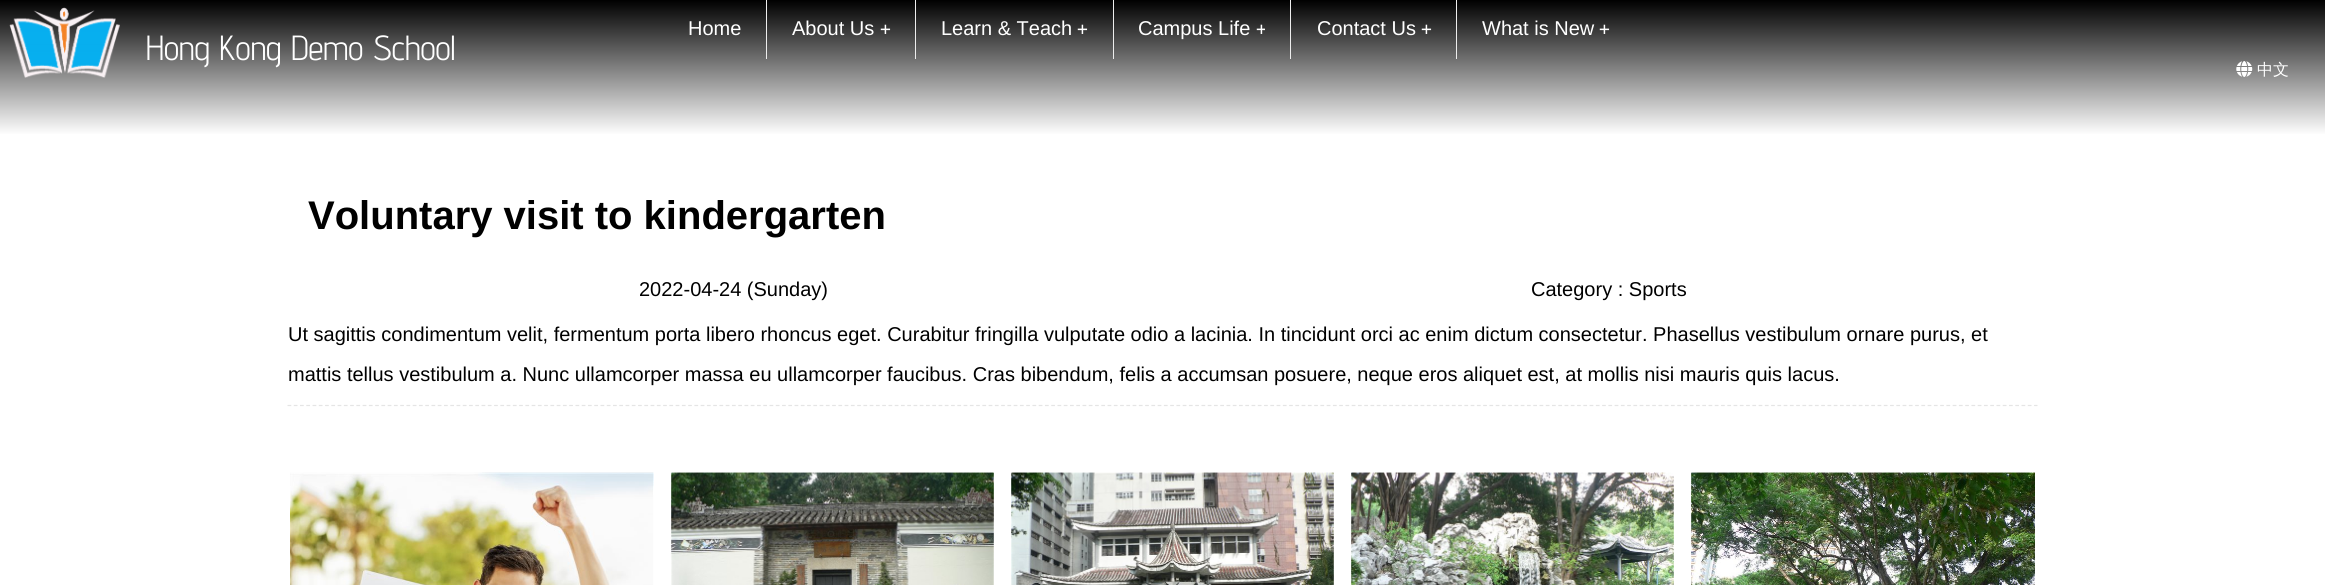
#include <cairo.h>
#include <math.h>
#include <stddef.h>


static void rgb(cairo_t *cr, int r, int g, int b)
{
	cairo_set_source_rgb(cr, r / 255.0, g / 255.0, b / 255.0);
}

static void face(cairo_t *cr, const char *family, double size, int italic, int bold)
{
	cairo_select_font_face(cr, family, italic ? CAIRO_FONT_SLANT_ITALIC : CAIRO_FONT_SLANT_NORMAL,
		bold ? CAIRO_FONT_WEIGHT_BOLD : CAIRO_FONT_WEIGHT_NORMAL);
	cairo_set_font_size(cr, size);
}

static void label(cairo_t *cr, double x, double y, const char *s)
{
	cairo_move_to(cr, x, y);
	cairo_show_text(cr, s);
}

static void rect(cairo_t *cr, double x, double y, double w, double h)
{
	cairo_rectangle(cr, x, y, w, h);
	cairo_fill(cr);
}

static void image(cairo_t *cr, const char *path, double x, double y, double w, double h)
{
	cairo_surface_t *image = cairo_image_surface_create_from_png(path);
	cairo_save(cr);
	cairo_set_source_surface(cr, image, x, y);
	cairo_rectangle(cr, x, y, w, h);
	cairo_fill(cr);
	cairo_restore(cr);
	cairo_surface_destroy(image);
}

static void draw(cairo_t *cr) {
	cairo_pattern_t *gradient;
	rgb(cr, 255, 255, 255);
	cairo_paint(cr);
	gradient = cairo_pattern_create_linear(1163, 0, 1163, 135);
	cairo_pattern_add_color_stop_rgba(gradient, 0, 0, 0, 0, 1);
	cairo_pattern_add_color_stop_rgba(gradient, 1, 1, 1, 1, 1);
	cairo_set_source(cr, gradient);
	cairo_pattern_destroy(gradient);
	rect(cr, 0, 0, 2325, 134);
	face(cr, "Liberation Sans", 20, 0, 0);
	rgb(cr, 255, 255, 255);
	label(cr, 688, 35, "Home");
	rgb(cr, 238, 238, 238);
	rect(cr, 766, 0, 1, 59);
	rgb(cr, 255, 255, 255);
	label(cr, 792, 35, "About Us");
	face(cr, "DejaVu Sans Mono", 18, 0, 0);
	label(cr, 880, 35, "+");
	rgb(cr, 238, 238, 238);
	rect(cr, 915, 0, 1, 59);
	face(cr, "Liberation Sans", 20, 0, 0);
	rgb(cr, 255, 255, 255);
	label(cr, 941, 35, "Learn & Teach");
	face(cr, "DejaVu Sans Mono", 18, 0, 0);
	label(cr, 1077, 35, "+");
	rgb(cr, 238, 238, 238);
	rect(cr, 1113, 0, 1, 59);
	face(cr, "Liberation Sans", 20, 0, 0);
	rgb(cr, 255, 255, 255);
	label(cr, 1138, 35, "Campus Life");
	cairo_save(cr);
	cairo_rectangle(cr, 1255, 19, 10, 20);
	cairo_clip(cr);
	face(cr, "DejaVu Sans Mono", 18, 0, 0);
	label(cr, 1256, 35, "+");
	cairo_restore(cr);
	rgb(cr, 238, 238, 238);
	rect(cr, 1290, 0, 1, 59);
	rgb(cr, 255, 255, 255);
	label(cr, 1317, 35, "Contact Us");
	face(cr, "DejaVu Sans Mono", 18, 0, 0);
	label(cr, 1421, 35, "+");
	rgb(cr, 238, 238, 238);
	rect(cr, 1456, 0, 1, 59);
	face(cr, "Liberation Sans", 20, 0, 0);
	rgb(cr, 255, 255, 255);
	label(cr, 1482, 35, "What is New");
	face(cr, "DejaVu Sans Mono", 18, 0, 0);
	label(cr, 1599, 35, "+");
	image(cr, "image0.png", 9, 7, 111, 71);
	face(cr, "Advent Pro", 34.9, 0, 0);
	label(cr, 146, 60, "Hong Kong Demo School");
	image(cr, "image1.png", 2236, 61, 17, 16);
	face(cr, "WenQuanYi Zen Hei Medium", 16, 0, 0);
	label(cr, 2257, 75, "中文");
	face(cr, "Liberation Sans", 40, 0, 1);
	rgb(cr, 0, 0, 0);
	label(cr, 308, 229, "Voluntary visit to kindergarten");
	face(cr, "Liberation Sans", 20, 0, 0);
	label(cr, 639, 296, "2022-04-24 (Sunday)");
	label(cr, 1531, 296, "Category : Sports");
	cairo_new_path(cr);
	cairo_move_to(cr, 287.5, 405.5);
	cairo_line_to(cr, 2037.5, 405.5);
	rgb(cr, 229, 229, 229);
	cairo_set_line_width(cr, 1.2);
	cairo_set_dash(cr, (double[]){3.75, 2.51}, 2, 0);
	cairo_stroke(cr);
	rgb(cr, 0, 0, 0);
	label(cr, 288, 341, "Ut sagittis condimentum velit, fermentum porta libero rhoncus eget. Curabitur fringilla vulputate odio a lacinia. In tincidunt orci ac enim dictum consectetur. Phasellus vestibulum ornare purus, et");
	label(cr, 288, 381, "mattis tellus vestibulum a. Nunc ullamcorper massa eu ullamcorper faucibus. Cras bibendum, felis a accumsan posuere, neque eros aliquet est, at mollis nisi mauris quis lacus.");
	image(cr, "image2.png", 290, 472, 364, 113);
	image(cr, "image3.png", 482, 472, 172, 113);
	image(cr, "image4.png", 671, 472, 323, 113);
	image(cr, "image5.png", 671, 472, 323, 113);
	image(cr, "image6.png", 1011, 472, 323, 113);
	image(cr, "image7.png", 1011, 472, 323, 113);
	image(cr, "image8.png", 1351, 472, 323, 113);
	image(cr, "image9.png", 1351, 472, 323, 113);
	image(cr, "image10.png", 1691, 472, 344, 113);
	image(cr, "image11.png", 1691, 472, 344, 113);
}

int main(void) {
	cairo_surface_t *surface = cairo_image_surface_create(CAIRO_FORMAT_RGB24, 2325, 585);
	cairo_t *cr = cairo_create(surface);
	cairo_font_options_t *options = cairo_font_options_create();
	cairo_font_options_set_hint_metrics(options, CAIRO_HINT_METRICS_OFF);
	cairo_font_options_set_hint_style(options, CAIRO_HINT_STYLE_NONE);
	cairo_set_font_options(cr, options);
	cairo_set_miter_limit(cr, 4);
	draw(cr);
	cairo_surface_write_to_png(surface, "render.png");
	cairo_font_options_destroy(options);
	cairo_destroy(cr);
	cairo_surface_destroy(surface);
	return 0;
}
